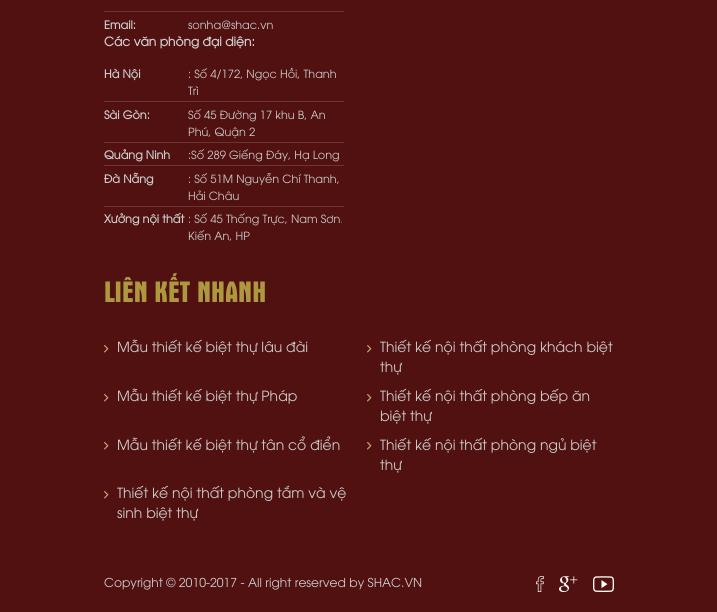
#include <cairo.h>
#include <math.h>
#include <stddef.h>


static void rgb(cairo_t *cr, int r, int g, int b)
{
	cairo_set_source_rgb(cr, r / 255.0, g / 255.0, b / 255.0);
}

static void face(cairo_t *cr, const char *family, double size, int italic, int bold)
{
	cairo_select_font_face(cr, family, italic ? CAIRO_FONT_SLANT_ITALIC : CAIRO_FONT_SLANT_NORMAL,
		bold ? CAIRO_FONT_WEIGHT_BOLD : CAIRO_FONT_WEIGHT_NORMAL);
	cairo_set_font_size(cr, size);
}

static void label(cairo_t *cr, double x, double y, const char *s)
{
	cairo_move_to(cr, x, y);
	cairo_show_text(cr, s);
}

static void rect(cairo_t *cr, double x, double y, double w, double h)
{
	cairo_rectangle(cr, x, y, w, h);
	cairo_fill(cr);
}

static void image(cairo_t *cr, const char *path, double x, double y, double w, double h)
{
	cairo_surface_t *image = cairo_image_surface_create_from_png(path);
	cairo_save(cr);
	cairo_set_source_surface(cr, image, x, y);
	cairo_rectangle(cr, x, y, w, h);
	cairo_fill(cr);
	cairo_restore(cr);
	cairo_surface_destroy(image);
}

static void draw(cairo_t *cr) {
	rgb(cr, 81, 17, 16);
	cairo_paint(cr);
	rgb(cr, 107, 53, 52);
	rect(cr, 104, 11, 240, 1);
	face(cr, "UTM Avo", 11.25, 0, 1);
	rgb(cr, 204, 204, 204);
	label(cr, 104, 29, "Email:");
	face(cr, "UTM Avo", 11.25, 0, 0);
	label(cr, 188, 29, "sonha@shac.vn");
	face(cr, "UTM Avo", 12.25, 0, 1);
	label(cr, 104, 46, "Các văn phòng đại diện:");
	rgb(cr, 107, 53, 52);
	rect(cr, 104, 101, 240, 1);
	face(cr, "UTM Avo", 11.25, 0, 1);
	rgb(cr, 204, 204, 204);
	label(cr, 104, 78, "Hà Nội");
	face(cr, "UTM Avo", 11.25, 0, 0);
	label(cr, 188, 78, ": Số 4/172, Ngọc Hồi, Thanh");
	label(cr, 188, 95, "Trì");
	rgb(cr, 107, 53, 52);
	rect(cr, 104, 142, 240, 1);
	face(cr, "UTM Avo", 11.25, 0, 1);
	rgb(cr, 204, 204, 204);
	label(cr, 104, 119, "Sài Gòn:");
	face(cr, "UTM Avo", 11.25, 0, 0);
	label(cr, 188, 119, "Số 45 Đường 17 khu B, An");
	label(cr, 188, 136, "Phú, Quận 2");
	rgb(cr, 107, 53, 52);
	rect(cr, 104, 165, 240, 1);
	face(cr, "UTM Avo", 11.25, 0, 1);
	rgb(cr, 204, 204, 204);
	label(cr, 104, 159, "Quảng Ninh");
	face(cr, "UTM Avo", 11.25, 0, 0);
	label(cr, 188, 159, ":Số 289 Giếng Đáy, Hạ Long");
	rgb(cr, 107, 53, 52);
	rect(cr, 104, 206, 240, 1);
	face(cr, "UTM Avo", 11.25, 0, 1);
	rgb(cr, 204, 204, 204);
	label(cr, 104, 183, "Đà Nẵng");
	face(cr, "UTM Avo", 11.25, 0, 0);
	label(cr, 188, 183, ": Số 51M Nguyễn Chí Thanh,");
	label(cr, 188, 200, "Hải Châu");
	face(cr, "UTM Avo", 11.25, 0, 1);
	label(cr, 104, 223, "Xưởng nội thất");
	face(cr, "UTM Avo", 11.25, 0, 0);
	label(cr, 188, 223, ": Số 45 Thống Trực, Nam Sơn.");
	label(cr, 188, 240, "Kiến An, HP");
	face(cr, "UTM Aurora", 30, 0, 0);
	rgb(cr, 173, 152, 64);
	label(cr, 104, 302, "LIÊN KẾT NHANH");
	image(cr, "image0.png", 104, 345, 5, 8);
	face(cr, "UTM Avo", 14, 0, 0);
	rgb(cr, 204, 204, 204);
	label(cr, 117, 352, "Mẫu thiết kế biệt thự lâu đài");
	image(cr, "image0.png", 367, 345, 5, 8);
	label(cr, 380, 352, "Thiết kế nội thất phòng khách biệt");
	label(cr, 380, 372, "thự");
	image(cr, "image0.png", 104, 394, 5, 8);
	label(cr, 117, 401, "Mẫu thiết kế biệt thự Pháp");
	image(cr, "image0.png", 367, 394, 5, 8);
	label(cr, 380, 401, "Thiết kế nội thất phòng bếp ăn");
	label(cr, 380, 421, "biệt thự");
	image(cr, "image0.png", 104, 442, 5, 8);
	label(cr, 117, 450, "Mẫu thiết kế biệt thự tân cổ điển");
	image(cr, "image0.png", 367, 442, 5, 8);
	label(cr, 380, 450, "Thiết kế nội thất phòng ngủ biệt");
	label(cr, 380, 470, "thự");
	image(cr, "image0.png", 104, 491, 5, 8);
	label(cr, 117, 498, "Thiết kế nội thất phòng tắm và vệ");
	label(cr, 117, 518, "sinh biệt thự");
	face(cr, "UTM Avo", 12.25, 0, 0);
	label(cr, 104, 587, "Copyright © 2010-2017 - All right reserved by SHAC.VN");
	image(cr, "image1.png", 536, 576, 8, 16);
	image(cr, "image2.png", 559, 576, 19, 16);
	image(cr, "image3.png", 593, 576, 21, 16);
}

int main(void) {
	cairo_surface_t *surface = cairo_image_surface_create(CAIRO_FORMAT_RGB24, 717, 612);
	cairo_t *cr = cairo_create(surface);
	cairo_font_options_t *options = cairo_font_options_create();
	cairo_font_options_set_hint_metrics(options, CAIRO_HINT_METRICS_OFF);
	cairo_font_options_set_hint_style(options, CAIRO_HINT_STYLE_NONE);
	cairo_set_font_options(cr, options);
	cairo_set_miter_limit(cr, 4);
	draw(cr);
	cairo_surface_write_to_png(surface, "render.png");
	cairo_font_options_destroy(options);
	cairo_destroy(cr);
	cairo_surface_destroy(surface);
	return 0;
}
